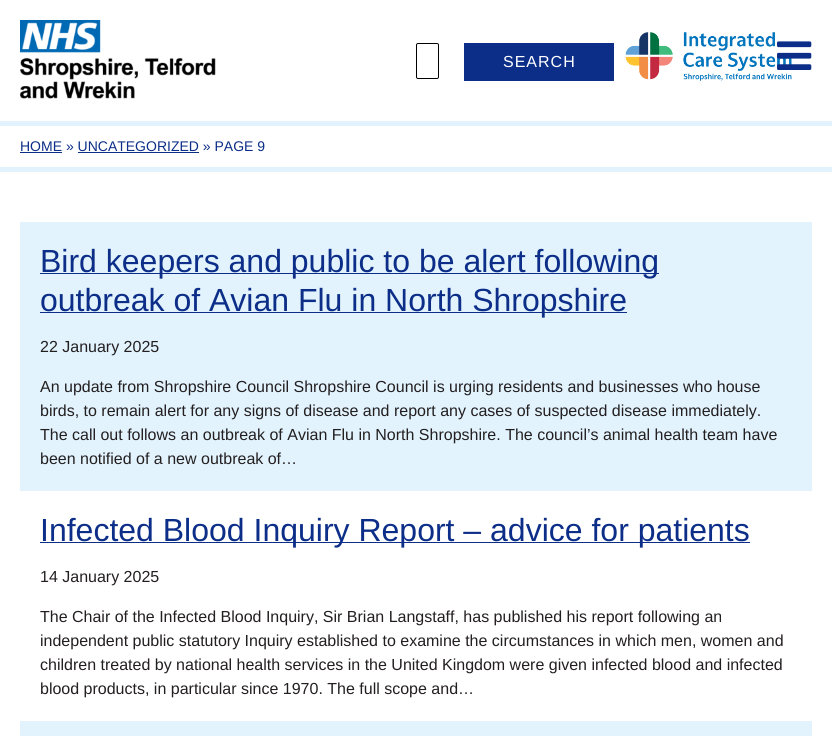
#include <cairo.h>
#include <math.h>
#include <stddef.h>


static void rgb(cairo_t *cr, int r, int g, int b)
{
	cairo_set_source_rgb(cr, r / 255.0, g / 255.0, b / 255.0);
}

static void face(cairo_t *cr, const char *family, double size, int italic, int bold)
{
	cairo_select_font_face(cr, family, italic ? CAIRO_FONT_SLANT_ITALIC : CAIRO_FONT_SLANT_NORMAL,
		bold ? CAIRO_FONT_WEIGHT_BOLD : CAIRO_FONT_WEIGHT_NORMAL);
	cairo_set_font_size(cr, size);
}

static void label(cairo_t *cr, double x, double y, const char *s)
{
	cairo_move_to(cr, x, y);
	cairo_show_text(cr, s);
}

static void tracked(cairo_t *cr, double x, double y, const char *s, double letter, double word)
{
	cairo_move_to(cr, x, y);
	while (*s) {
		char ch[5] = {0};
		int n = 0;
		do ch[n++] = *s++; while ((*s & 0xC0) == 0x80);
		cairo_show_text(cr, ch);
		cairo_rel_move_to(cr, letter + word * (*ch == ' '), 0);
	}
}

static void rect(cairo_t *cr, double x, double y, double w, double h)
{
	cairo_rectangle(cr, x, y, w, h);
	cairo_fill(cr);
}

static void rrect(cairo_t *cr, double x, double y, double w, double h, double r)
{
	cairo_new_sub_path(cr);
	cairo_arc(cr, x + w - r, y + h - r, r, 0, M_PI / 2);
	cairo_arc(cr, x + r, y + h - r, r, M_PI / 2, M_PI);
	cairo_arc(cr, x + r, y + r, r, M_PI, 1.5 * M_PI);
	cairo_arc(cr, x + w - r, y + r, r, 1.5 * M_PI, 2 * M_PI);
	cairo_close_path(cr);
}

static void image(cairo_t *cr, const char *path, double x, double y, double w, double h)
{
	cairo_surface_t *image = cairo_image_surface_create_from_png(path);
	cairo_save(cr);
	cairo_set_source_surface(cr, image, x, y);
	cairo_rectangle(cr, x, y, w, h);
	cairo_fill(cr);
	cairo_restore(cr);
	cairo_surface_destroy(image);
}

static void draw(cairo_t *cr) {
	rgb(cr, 255, 255, 255);
	cairo_paint(cr);
	image(cr, "image0.png", 20, 20, 196, 79);
	rrect(cr, 416.5, 43.5, 22, 35, 1.5);
	rgb(cr, 0, 0, 0);
	cairo_set_line_width(cr, 1);
	cairo_stroke(cr);
	rgb(cr, 12, 46, 136);
	rect(cr, 464, 43, 150, 38);
	face(cr, "Liberation Sans", 16, 0, 0);
	rgb(cr, 255, 255, 255);
	tracked(cr, 503, 67, "SEARCH", 1, 0);
	image(cr, "image1.png", 625, 32, 167, 49);
	image(cr, "image2.png", 777, 41, 35, 29);
	rgb(cr, 226, 243, 253);
	rect(cr, 0, 121, 832, 5);
	rect(cr, 0, 167, 832, 5);
	face(cr, "Liberation Sans", 14, 0, 0);
	rgb(cr, 12, 46, 136);
	label(cr, 20, 151, "HOME » UNCATEGORIZED » PAGE 9");
	rect(cr, 20, 152, 42, 1);
	rect(cr, 78, 152, 121, 1);
	rgb(cr, 226, 243, 253);
	rect(cr, 20, 222, 792, 269);
	rgb(cr, 12, 46, 136);
	rect(cr, 40, 273, 619, 1);
	face(cr, "Liberation Sans", 32, 0, 0);
	label(cr, 40, 272, "Bird keepers and public to be alert following");
	rect(cr, 40, 312, 587, 1);
	label(cr, 40, 311, "outbreak of Avian Flu in North Shropshire");
	face(cr, "Liberation Sans", 16, 0, 0);
	rgb(cr, 35, 31, 32);
	label(cr, 40, 352, "22 January 2025");
	label(cr, 40, 392, "An update from Shropshire Council Shropshire Council is urging residents and businesses who house");
	label(cr, 40, 416, "birds, to remain alert for any signs of disease and report any cases of suspected disease immediately.");
	label(cr, 40, 440, "The call out follows an outbreak of Avian Flu in North Shropshire. The council’s animal health team have");
	label(cr, 40, 464, "been notified of a new outbreak of…");
	rgb(cr, 12, 46, 136);
	rect(cr, 40, 542, 710, 1);
	face(cr, "Liberation Sans", 32, 0, 0);
	label(cr, 40, 541, "Infected Blood Inquiry Report – advice for patients");
	face(cr, "Liberation Sans", 16, 0, 0);
	rgb(cr, 35, 31, 32);
	label(cr, 40, 582, "14 January 2025");
	label(cr, 40, 622, "The Chair of the Infected Blood Inquiry, Sir Brian Langstaff, has published his report following an");
	label(cr, 40, 646, "independent public statutory Inquiry established to examine the circumstances in which men, women and");
	label(cr, 40, 670, "children treated by national health services in the United Kingdom were given infected blood and infected");
	label(cr, 40, 694, "blood products, in particular since 1970. The full scope and…");
	rgb(cr, 226, 243, 253);
	rect(cr, 20, 721, 792, 15);
}

int main(void) {
	cairo_surface_t *surface = cairo_image_surface_create(CAIRO_FORMAT_RGB24, 832, 736);
	cairo_t *cr = cairo_create(surface);
	cairo_font_options_t *options = cairo_font_options_create();
	cairo_font_options_set_hint_metrics(options, CAIRO_HINT_METRICS_OFF);
	cairo_font_options_set_hint_style(options, CAIRO_HINT_STYLE_NONE);
	cairo_set_font_options(cr, options);
	cairo_set_miter_limit(cr, 4);
	draw(cr);
	cairo_surface_write_to_png(surface, "render.png");
	cairo_font_options_destroy(options);
	cairo_destroy(cr);
	cairo_surface_destroy(surface);
	return 0;
}
